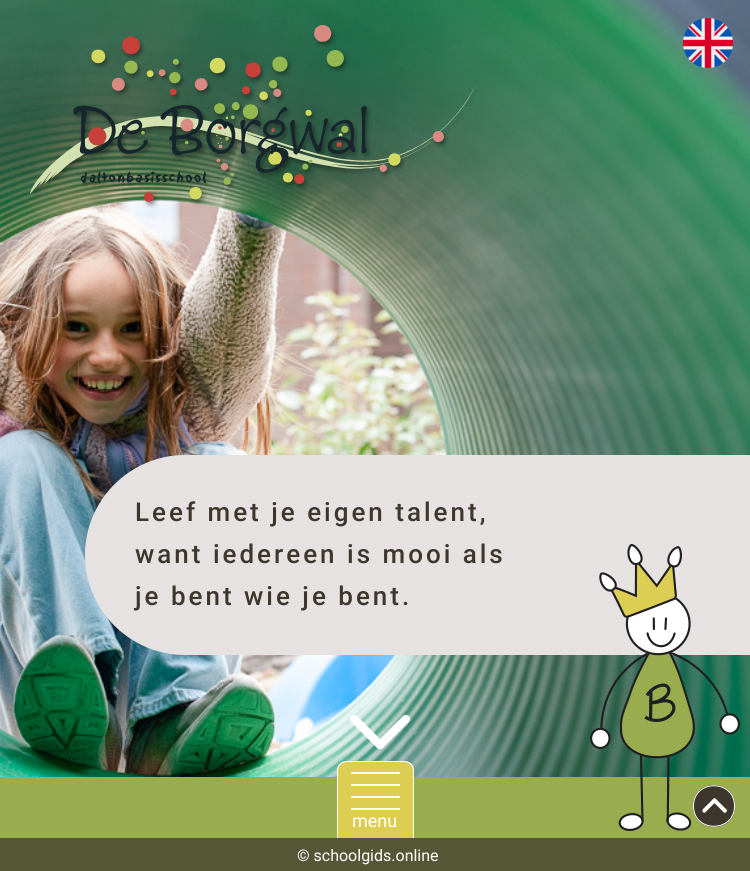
#include <cairo.h>
#include <math.h>
#include <stddef.h>


static void rgb(cairo_t *cr, int r, int g, int b)
{
	cairo_set_source_rgb(cr, r / 255.0, g / 255.0, b / 255.0);
}

static void face(cairo_t *cr, const char *family, double size, int italic, int bold)
{
	cairo_select_font_face(cr, family, italic ? CAIRO_FONT_SLANT_ITALIC : CAIRO_FONT_SLANT_NORMAL,
		bold ? CAIRO_FONT_WEIGHT_BOLD : CAIRO_FONT_WEIGHT_NORMAL);
	cairo_set_font_size(cr, size);
}

static void label(cairo_t *cr, double x, double y, const char *s)
{
	cairo_move_to(cr, x, y);
	cairo_show_text(cr, s);
}

static void tracked(cairo_t *cr, double x, double y, const char *s, double letter, double word)
{
	cairo_move_to(cr, x, y);
	while (*s) {
		char ch[5] = {0};
		int n = 0;
		do ch[n++] = *s++; while ((*s & 0xC0) == 0x80);
		cairo_show_text(cr, ch);
		cairo_rel_move_to(cr, letter + word * (*ch == ' '), 0);
	}
}

static void rect(cairo_t *cr, double x, double y, double w, double h)
{
	cairo_rectangle(cr, x, y, w, h);
	cairo_fill(cr);
}

static void rrect(cairo_t *cr, double x, double y, double w, double h, double r)
{
	cairo_new_sub_path(cr);
	cairo_arc(cr, x + w - r, y + h - r, r, 0, M_PI / 2);
	cairo_arc(cr, x + r, y + h - r, r, M_PI / 2, M_PI);
	cairo_arc(cr, x + r, y + r, r, M_PI, 1.5 * M_PI);
	cairo_arc(cr, x + w - r, y + r, r, 1.5 * M_PI, 2 * M_PI);
	cairo_close_path(cr);
}

static void image(cairo_t *cr, const char *path, double x, double y, double w, double h)
{
	cairo_surface_t *image = cairo_image_surface_create_from_png(path);
	cairo_save(cr);
	cairo_set_source_surface(cr, image, x, y);
	cairo_rectangle(cr, x, y, w, h);
	cairo_fill(cr);
	cairo_restore(cr);
	cairo_surface_destroy(image);
}

static void draw(cairo_t *cr) {
	rgb(cr, 255, 255, 255);
	cairo_paint(cr);
	image(cr, "image0.png", 0, 0, 750, 777);
	image(cr, "image1.png", 30, 25, 445, 183);
	image(cr, "image2.png", 683, 18, 50, 50);
	rgb(cr, 229, 226, 225);
	cairo_new_path(cr);
	cairo_move_to(cr, 185, 455);
	cairo_line_to(cr, 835, 455);
	cairo_line_to(cr, 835, 655);
	cairo_line_to(cr, 185, 655);
	cairo_curve_to(cr, 130, 655, 85, 610, 85, 555);
	cairo_curve_to(cr, 85, 500, 130, 455, 185, 455);
	cairo_close_path(cr);
	cairo_fill(cr);
	face(cr, "Roboto Medium", 26, 0, 0);
	rgb(cr, 61, 54, 45);
	tracked(cr, 135, 521, "Leef met je eigen talent,", 3, 0);
	tracked(cr, 135, 563, "want iedereen is mooi als", 3, 0);
	tracked(cr, 135, 605, "je bent wie je bent.", 3, 0);
	rgb(cr, 153, 173, 79);
	rect(cr, 0, 777, 750, 61);
	image(cr, "image3.png", 590, 544, 150, 287);
	image(cr, "image4.png", 350, 714, 60, 35);
	rgb(cr, 61, 54, 45);
	cairo_new_path(cr);
	cairo_move_to(cr, 693, 806);
	cairo_curve_to(cr, 693, 778, 735, 778, 735, 806);
	cairo_curve_to(cr, 735, 834, 693, 834, 693, 806);
	cairo_close_path(cr);
	cairo_fill(cr);
	cairo_new_path(cr);
	cairo_move_to(cr, 693.5, 806);
	cairo_curve_to(cr, 693.5, 779, 734.5, 779, 734.5, 806);
	cairo_curve_to(cr, 734.5, 833, 693.5, 833, 693.5, 806);
	cairo_close_path(cr);
	rgb(cr, 255, 255, 255);
	cairo_set_line_width(cr, 1);
	cairo_stroke(cr);
	image(cr, "image5.png", 702, 798, 25, 15);
	rgb(cr, 220, 206, 83);
	cairo_new_path(cr);
	cairo_move_to(cr, 347, 761);
	cairo_line_to(cr, 404, 761);
	cairo_curve_to(cr, 409.5, 761, 414, 765.5, 414, 771);
	cairo_line_to(cr, 414, 838);
	cairo_line_to(cr, 337, 838);
	cairo_line_to(cr, 337, 771);
	cairo_curve_to(cr, 337, 765.5, 341.5, 761, 347, 761);
	cairo_close_path(cr);
	cairo_fill(cr);
	rgb(cr, 255, 255, 255);
	cairo_set_fill_rule(cr, CAIRO_FILL_RULE_EVEN_ODD);
	cairo_new_path(cr);
	cairo_move_to(cr, 347, 761);
	cairo_line_to(cr, 404, 761);
	cairo_curve_to(cr, 410, 761, 414, 765, 414, 771);
	cairo_line_to(cr, 414, 838);
	cairo_line_to(cr, 337, 838);
	cairo_line_to(cr, 337, 771);
	cairo_curve_to(cr, 337, 765, 341, 761, 347, 761);
	cairo_close_path(cr);
	cairo_move_to(cr, 347, 762);
	cairo_line_to(cr, 404, 762);
	cairo_curve_to(cr, 409, 762, 413, 766, 413, 771);
	cairo_line_to(cr, 413, 838);
	cairo_line_to(cr, 338, 838);
	cairo_line_to(cr, 338, 771);
	cairo_curve_to(cr, 338, 766, 342, 762, 347, 762);
	cairo_close_path(cr);
	cairo_fill(cr);
	rrect(cr, 351, 772, 49, 2, 1);
	cairo_fill(cr);
	rrect(cr, 351, 784, 49, 2, 1);
	cairo_fill(cr);
	rrect(cr, 351, 796, 49, 2, 1);
	cairo_fill(cr);
	rrect(cr, 351, 808, 49, 2, 1);
	cairo_fill(cr);
	face(cr, "Roboto", 18, 0, 0);
	label(cr, 352, 827, "menu");
	rgb(cr, 83, 87, 54);
	rect(cr, 0, 838, 750, 33);
	face(cr, "Roboto", 16, 0, 0);
	rgb(cr, 255, 255, 255);
	label(cr, 297, 861, "© schoolgids.online");
}

int main(void) {
	cairo_surface_t *surface = cairo_image_surface_create(CAIRO_FORMAT_RGB24, 750, 871);
	cairo_t *cr = cairo_create(surface);
	cairo_font_options_t *options = cairo_font_options_create();
	cairo_font_options_set_hint_metrics(options, CAIRO_HINT_METRICS_OFF);
	cairo_font_options_set_hint_style(options, CAIRO_HINT_STYLE_NONE);
	cairo_set_font_options(cr, options);
	cairo_set_miter_limit(cr, 4);
	draw(cr);
	cairo_surface_write_to_png(surface, "render.png");
	cairo_font_options_destroy(options);
	cairo_destroy(cr);
	cairo_surface_destroy(surface);
	return 0;
}
